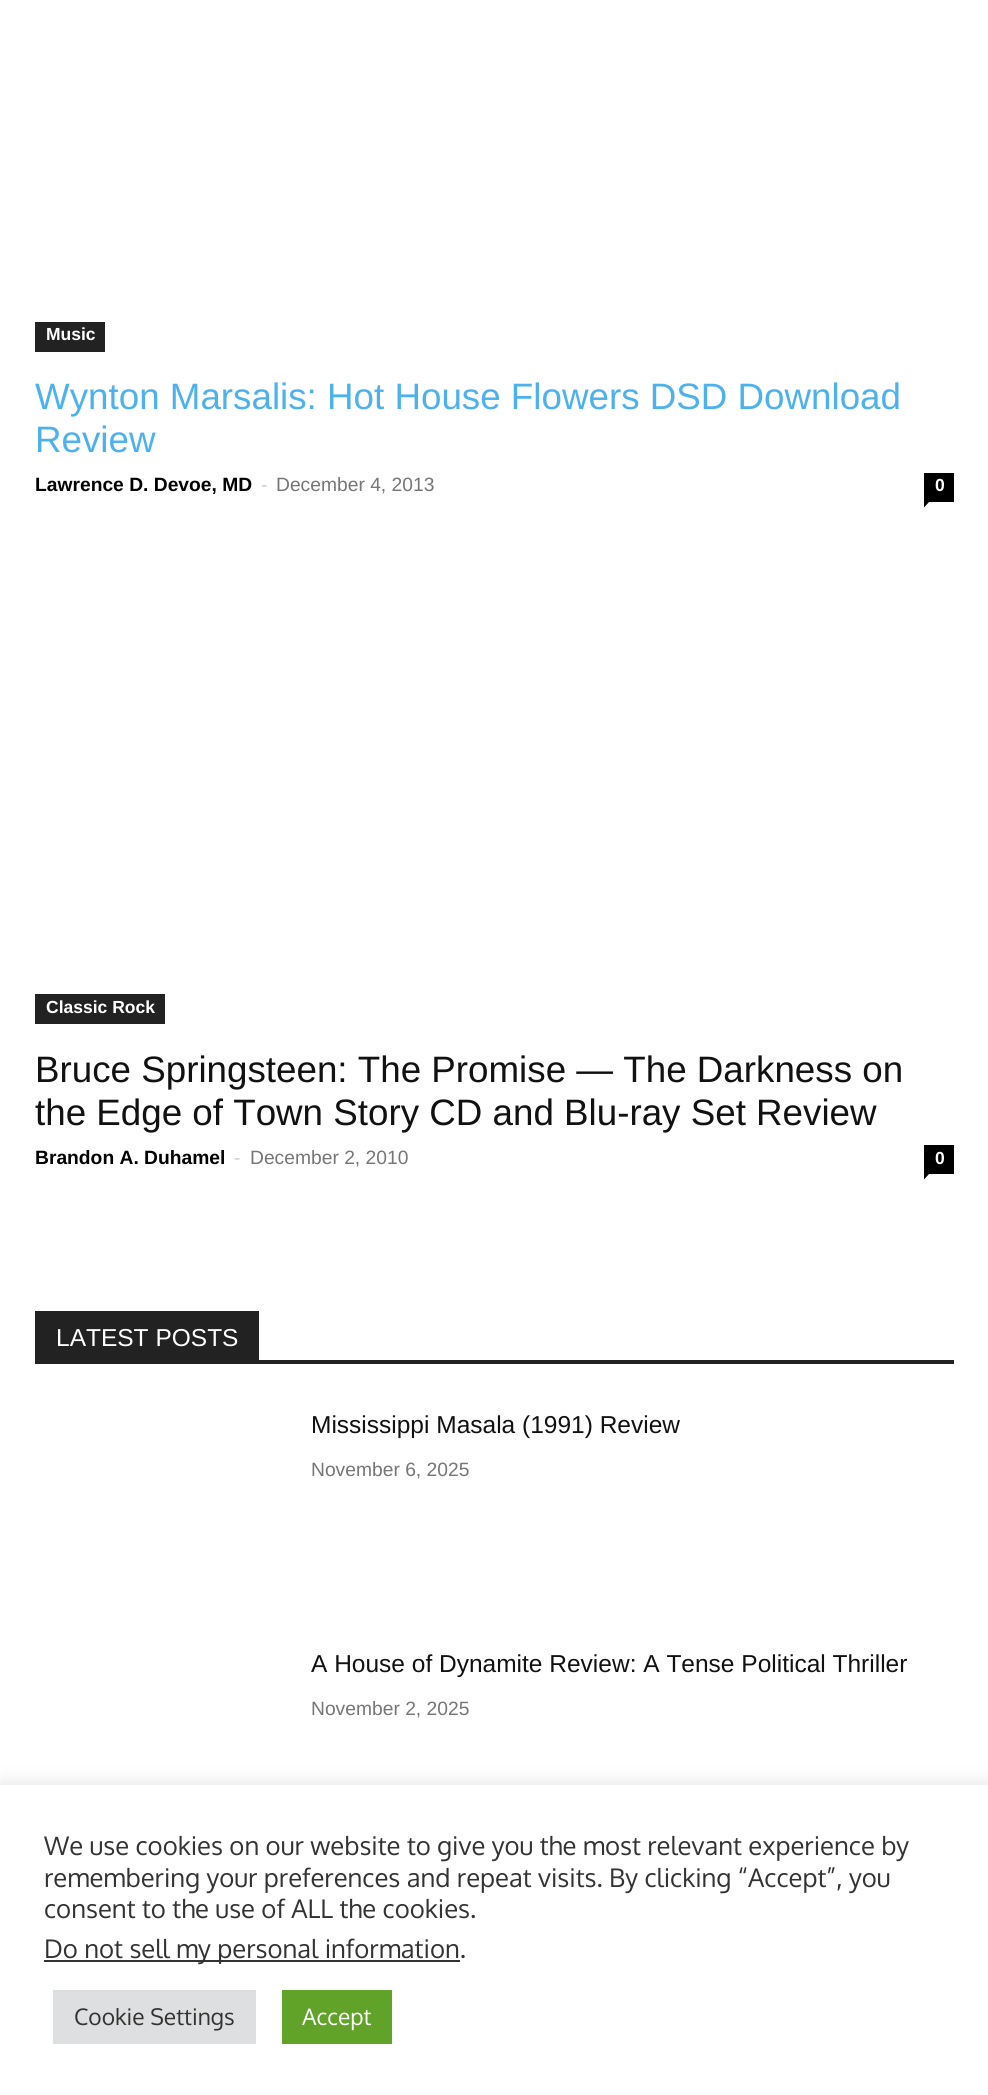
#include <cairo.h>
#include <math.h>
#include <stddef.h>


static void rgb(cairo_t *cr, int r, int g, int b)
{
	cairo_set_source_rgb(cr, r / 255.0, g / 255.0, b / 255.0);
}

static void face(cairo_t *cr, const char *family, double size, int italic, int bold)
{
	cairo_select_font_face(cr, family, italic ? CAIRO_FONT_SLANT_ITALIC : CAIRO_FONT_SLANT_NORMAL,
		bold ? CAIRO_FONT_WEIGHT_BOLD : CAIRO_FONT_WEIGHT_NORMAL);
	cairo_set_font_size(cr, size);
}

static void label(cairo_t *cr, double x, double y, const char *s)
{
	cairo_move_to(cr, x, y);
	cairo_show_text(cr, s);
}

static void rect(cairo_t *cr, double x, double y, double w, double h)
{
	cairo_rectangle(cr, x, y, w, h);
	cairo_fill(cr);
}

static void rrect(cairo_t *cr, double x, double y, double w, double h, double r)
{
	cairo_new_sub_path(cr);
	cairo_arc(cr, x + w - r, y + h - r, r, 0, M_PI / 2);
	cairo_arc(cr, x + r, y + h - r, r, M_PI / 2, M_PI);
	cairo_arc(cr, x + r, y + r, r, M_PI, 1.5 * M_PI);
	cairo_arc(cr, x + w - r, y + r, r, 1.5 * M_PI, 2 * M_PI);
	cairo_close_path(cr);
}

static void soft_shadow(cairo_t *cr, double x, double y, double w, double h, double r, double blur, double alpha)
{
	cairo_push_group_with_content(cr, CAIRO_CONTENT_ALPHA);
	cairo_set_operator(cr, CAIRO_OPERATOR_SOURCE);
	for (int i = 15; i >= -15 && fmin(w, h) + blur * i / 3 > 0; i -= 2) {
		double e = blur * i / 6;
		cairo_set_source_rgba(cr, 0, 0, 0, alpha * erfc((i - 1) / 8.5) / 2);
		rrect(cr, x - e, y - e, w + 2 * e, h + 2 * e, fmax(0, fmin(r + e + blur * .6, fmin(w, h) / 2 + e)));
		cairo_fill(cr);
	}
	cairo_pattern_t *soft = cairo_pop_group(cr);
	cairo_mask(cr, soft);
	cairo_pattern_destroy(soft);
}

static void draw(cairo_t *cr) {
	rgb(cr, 255, 255, 255);
	cairo_paint(cr);
	rgb(cr, 34, 34, 34);
	rect(cr, 35, 322, 70, 30);
	face(cr, "Liberation Sans", 17.5, 0, 1);
	rgb(cr, 255, 255, 255);
	label(cr, 46, 340, "Music");
	face(cr, "Liberation Sans", 36.75, 0, 0);
	rgb(cr, 77, 178, 236);
	label(cr, 35, 409, "Wynton Marsalis: Hot House Flowers DSD Download");
	label(cr, 35, 452, "Review");
	face(cr, "Liberation Sans", 19.25, 0, 1);
	rgb(cr, 0, 0, 0);
	label(cr, 35, 491, "Lawrence D. Devoe, MD");
	face(cr, "Liberation Sans", 19.25, 0, 0);
	rgb(cr, 204, 204, 204);
	label(cr, 261, 491, "-");
	rgb(cr, 118, 118, 118);
	label(cr, 276, 491, "December 4, 2013");
	rgb(cr, 0, 0, 0);
	rect(cr, 924, 473, 30, 29);
	face(cr, "Liberation Sans", 17.5, 0, 1);
	rgb(cr, 255, 255, 255);
	label(cr, 935, 491, "0");
	rgb(cr, 0, 0, 0);
	cairo_new_path(cr);
	cairo_move_to(cr, 924, 502);
	cairo_line_to(cr, 929, 502);
	cairo_line_to(cr, 924, 507.5);
	cairo_close_path(cr);
	cairo_fill(cr);
	rgb(cr, 34, 34, 34);
	rect(cr, 35, 994, 130, 30);
	rgb(cr, 255, 255, 255);
	label(cr, 46, 1013, "Classic Rock");
	face(cr, "Liberation Sans", 36.75, 0, 0);
	rgb(cr, 17, 17, 17);
	label(cr, 35, 1082, "Bruce Springsteen: The Promise — The Darkness on");
	label(cr, 35, 1125, "the Edge of Town Story CD and Blu-ray Set Review");
	face(cr, "Liberation Sans", 19.25, 0, 1);
	rgb(cr, 0, 0, 0);
	label(cr, 35, 1164, "Brandon A. Duhamel");
	face(cr, "Liberation Sans", 19.25, 0, 0);
	rgb(cr, 204, 204, 204);
	label(cr, 234, 1164, "-");
	rgb(cr, 118, 118, 118);
	label(cr, 250, 1164, "December 2, 2010");
	rgb(cr, 0, 0, 0);
	rect(cr, 924, 1145, 30, 29);
	face(cr, "Liberation Sans", 17.5, 0, 1);
	rgb(cr, 255, 255, 255);
	label(cr, 935, 1164, "0");
	rgb(cr, 0, 0, 0);
	cairo_new_path(cr);
	cairo_move_to(cr, 924, 1174);
	cairo_line_to(cr, 929, 1174);
	cairo_line_to(cr, 924, 1179.5);
	cairo_close_path(cr);
	cairo_fill(cr);
	rgb(cr, 34, 34, 34);
	rect(cr, 35, 1360, 919, 4);
	rect(cr, 35, 1311, 224, 49);
	face(cr, "Liberation Sans", 24.5, 0, 0);
	rgb(cr, 255, 255, 255);
	label(cr, 56, 1346, "LATEST POSTS");
	rgb(cr, 17, 17, 17);
	label(cr, 311, 1433, "Mississippi Masala (1991) Review");
	face(cr, "Liberation Sans", 19.25, 0, 0);
	rgb(cr, 118, 118, 118);
	label(cr, 311, 1476, "November 6, 2025");
	face(cr, "Liberation Sans", 24.5, 0, 0);
	rgb(cr, 17, 17, 17);
	label(cr, 311, 1672, "A House of Dynamite Review: A Tense Political Thriller");
	face(cr, "Liberation Sans", 19.25, 0, 0);
	rgb(cr, 118, 118, 118);
	label(cr, 311, 1715, "November 2, 2025");
	rgb(cr, 172, 171, 171);
	soft_shadow(cr, 0, 1783, 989, 312, 0, 9, 0.3);
	rgb(cr, 255, 255, 255);
	rect(cr, 0, 1785, 988, 310);
	face(cr, "Oxygen", 25.65, 0, 0);
	rgb(cr, 51, 51, 51);
	label(cr, 44, 1855, "We use cookies on our website to give you the most relevant experience by");
	label(cr, 44, 1887, "remembering your preferences and repeat visits. By clicking “Accept”, you");
	label(cr, 44, 1918, "consent to the use of ALL the cookies.");
	rect(cr, 44, 1960, 416, 2);
	label(cr, 44, 1958, "Do not sell my personal information.");
	rgb(cr, 222, 223, 224);
	rect(cr, 53, 1990, 203, 54);
	face(cr, "Oxygen", 22.75, 0, 0);
	rgb(cr, 51, 51, 51);
	label(cr, 74, 2025, "Cookie Settings");
	rgb(cr, 97, 162, 41);
	rect(cr, 282, 1990, 110, 54);
	rgb(cr, 255, 255, 255);
	label(cr, 302, 2025, "Accept");
}

int main(void) {
	cairo_surface_t *surface = cairo_image_surface_create(CAIRO_FORMAT_RGB24, 988, 2095);
	cairo_t *cr = cairo_create(surface);
	cairo_font_options_t *options = cairo_font_options_create();
	cairo_font_options_set_hint_metrics(options, CAIRO_HINT_METRICS_OFF);
	cairo_font_options_set_hint_style(options, CAIRO_HINT_STYLE_NONE);
	cairo_set_font_options(cr, options);
	cairo_set_miter_limit(cr, 4);
	draw(cr);
	cairo_surface_write_to_png(surface, "render.png");
	cairo_font_options_destroy(options);
	cairo_destroy(cr);
	cairo_surface_destroy(surface);
	return 0;
}
